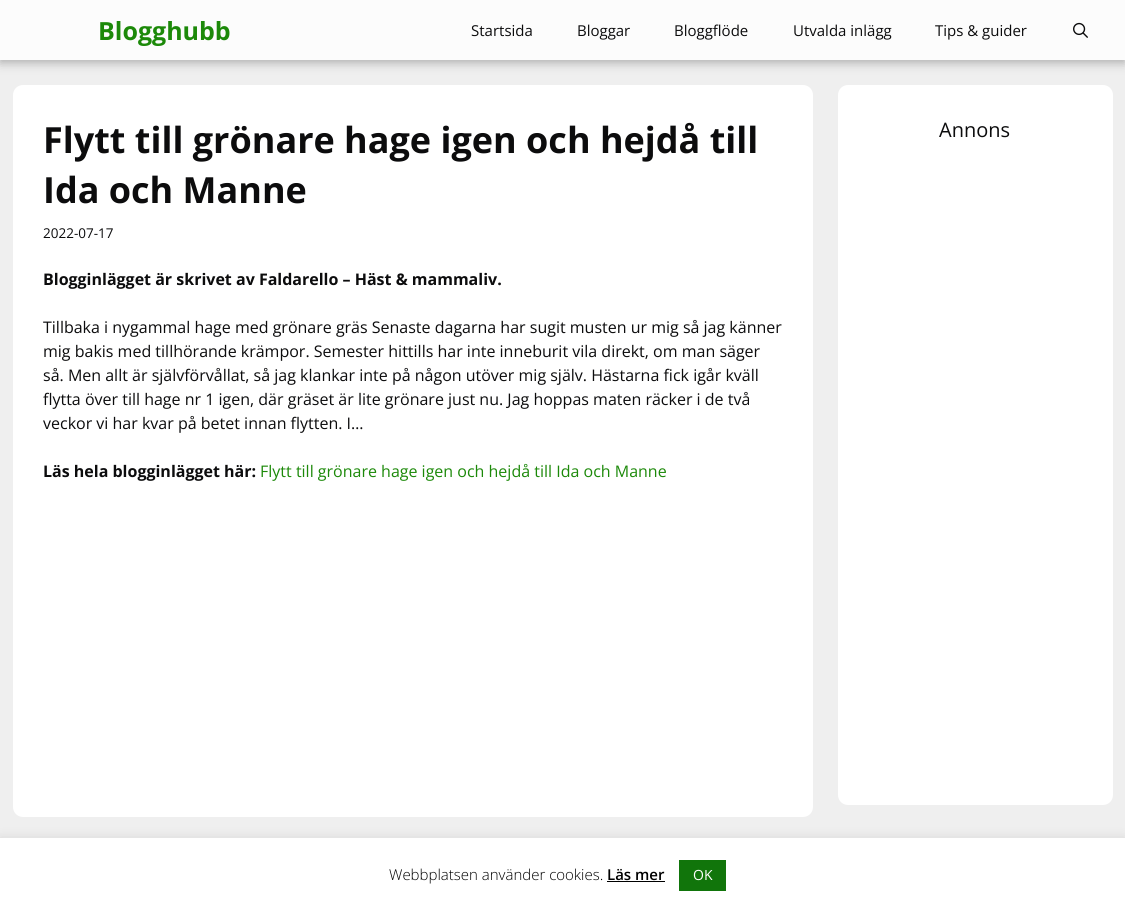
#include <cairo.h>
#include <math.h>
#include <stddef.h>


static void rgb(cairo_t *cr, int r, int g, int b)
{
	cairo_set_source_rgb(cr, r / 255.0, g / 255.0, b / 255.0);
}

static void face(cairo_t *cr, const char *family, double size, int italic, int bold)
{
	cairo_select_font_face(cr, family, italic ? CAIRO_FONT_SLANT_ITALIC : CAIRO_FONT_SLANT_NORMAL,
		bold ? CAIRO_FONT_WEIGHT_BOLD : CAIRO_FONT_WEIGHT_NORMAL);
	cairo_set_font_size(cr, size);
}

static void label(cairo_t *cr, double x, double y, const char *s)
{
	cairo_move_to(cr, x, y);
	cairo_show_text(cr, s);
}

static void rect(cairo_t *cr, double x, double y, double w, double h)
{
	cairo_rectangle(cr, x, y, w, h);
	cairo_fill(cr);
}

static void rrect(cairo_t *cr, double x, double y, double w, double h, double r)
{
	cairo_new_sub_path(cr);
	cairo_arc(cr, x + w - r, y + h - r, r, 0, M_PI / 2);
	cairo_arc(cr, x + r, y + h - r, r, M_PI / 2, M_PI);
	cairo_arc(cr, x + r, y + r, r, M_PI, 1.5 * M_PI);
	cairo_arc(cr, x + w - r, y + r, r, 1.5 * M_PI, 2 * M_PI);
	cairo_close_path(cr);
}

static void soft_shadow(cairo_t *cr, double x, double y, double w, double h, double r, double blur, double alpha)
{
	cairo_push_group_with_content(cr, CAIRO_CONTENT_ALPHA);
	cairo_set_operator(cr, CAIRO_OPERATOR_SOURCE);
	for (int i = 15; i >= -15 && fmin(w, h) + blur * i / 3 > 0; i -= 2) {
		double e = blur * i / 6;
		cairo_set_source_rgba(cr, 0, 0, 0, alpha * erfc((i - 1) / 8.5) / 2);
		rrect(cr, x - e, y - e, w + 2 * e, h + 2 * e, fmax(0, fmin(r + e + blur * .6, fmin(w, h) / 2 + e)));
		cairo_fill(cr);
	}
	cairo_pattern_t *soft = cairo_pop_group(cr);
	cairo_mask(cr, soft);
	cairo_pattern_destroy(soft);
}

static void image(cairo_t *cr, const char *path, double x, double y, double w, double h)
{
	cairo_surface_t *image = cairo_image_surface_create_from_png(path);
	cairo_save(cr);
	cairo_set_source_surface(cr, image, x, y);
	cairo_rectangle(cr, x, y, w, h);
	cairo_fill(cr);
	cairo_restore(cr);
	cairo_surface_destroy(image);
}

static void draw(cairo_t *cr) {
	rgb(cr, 239, 239, 239);
	cairo_paint(cr);
	rgb(cr, 176, 176, 176);
	soft_shadow(cr, 0, 3, 1125, 60, 0, 5, 1);
	rgb(cr, 252, 252, 252);
	rect(cr, 0, 0, 1125, 60);
	face(cr, "Open Sans", 25, 0, 1);
	rgb(cr, 28, 137, 9);
	label(cr, 98, 40, "Blogghubb");
	face(cr, "Open Sans", 15, 0, 0);
	rgb(cr, 12, 12, 13);
	label(cr, 471, 36, "Startsida");
	label(cr, 577, 36, "Bloggar");
	label(cr, 674, 36, "Bloggflöde");
	label(cr, 793, 36, "Utvalda inlägg");
	label(cr, 935, 36, "Tips & guider");
	image(cr, "image0.png", 1073, 22, 15, 16);
	rgb(cr, 255, 255, 255);
	rrect(cr, 13, 85, 800, 732, 10);
	cairo_fill(cr);
	face(cr, "Open Sans", 36, 0, 1);
	rgb(cr, 12, 12, 13);
	label(cr, 43, 153, "Flytt till grönare hage igen och hejdå till");
	label(cr, 43, 203, "Ida och Manne");
	face(cr, "Open Sans", 13.5, 0, 0);
	label(cr, 43, 238, "2022-07-17");
	face(cr, "Open Sans", 16, 0, 1);
	label(cr, 43, 285, "Blogginlägget är skrivet av Faldarello – Häst & mammaliv.");
	face(cr, "Open Sans", 16, 0, 0);
	label(cr, 43, 333, "Tillbaka i nygammal hage med grönare gräs Senaste dagarna har sugit musten ur mig så jag känner");
	label(cr, 43, 357, "mig bakis med tillhörande krämpor. Semester hittills har inte inneburit vila direkt, om man säger");
	label(cr, 43, 381, "så. Men allt är självförvållat, så jag klankar inte på någon utöver mig själv. Hästarna fick igår kväll");
	label(cr, 43, 405, "flytta över till hage nr 1 igen, där gräset är lite grönare just nu. Jag hoppas maten räcker i de två");
	label(cr, 43, 429, "veckor vi har kvar på betet innan flytten. I…");
	face(cr, "Open Sans", 16, 0, 1);
	label(cr, 43, 477, "Läs hela blogginlägget här:");
	face(cr, "Open Sans", 16, 0, 0);
	rgb(cr, 28, 137, 9);
	label(cr, 260, 477, "Flytt till grönare hage igen och hejdå till Ida och Manne");
	rgb(cr, 255, 255, 255);
	rrect(cr, 838, 85, 275, 720, 10);
	cairo_fill(cr);
	face(cr, "Open Sans", 20, 0, 0);
	rgb(cr, 12, 12, 13);
	label(cr, 939, 137, "Annons");
	rgb(cr, 172, 171, 171);
	soft_shadow(cr, 0, 837, 1125, 75, 0, 5, 0.3);
	rgb(cr, 255, 255, 255);
	rect(cr, 0, 838, 1125, 75);
	face(cr, "Open Sans Light", 15, 0, 0);
	rgb(cr, 0, 0, 0);
	label(cr, 389, 880, "Webbplatsen använder cookies.");
	face(cr, "Open Sans SemiBold", 15, 0, 0);
	label(cr, 607, 880, "Läs mer");
	rect(cr, 607, 881, 58, 1);
	rgb(cr, 17, 117, 11);
	rect(cr, 679, 860, 47, 31);
	face(cr, "Open Sans", 14, 0, 0);
	rgb(cr, 255, 255, 255);
	label(cr, 693, 880, "OK");
}

int main(void) {
	cairo_surface_t *surface = cairo_image_surface_create(CAIRO_FORMAT_RGB24, 1125, 913);
	cairo_t *cr = cairo_create(surface);
	cairo_font_options_t *options = cairo_font_options_create();
	cairo_font_options_set_hint_metrics(options, CAIRO_HINT_METRICS_OFF);
	cairo_font_options_set_hint_style(options, CAIRO_HINT_STYLE_NONE);
	cairo_set_font_options(cr, options);
	cairo_set_miter_limit(cr, 4);
	draw(cr);
	cairo_surface_write_to_png(surface, "render.png");
	cairo_font_options_destroy(options);
	cairo_destroy(cr);
	cairo_surface_destroy(surface);
	return 0;
}
